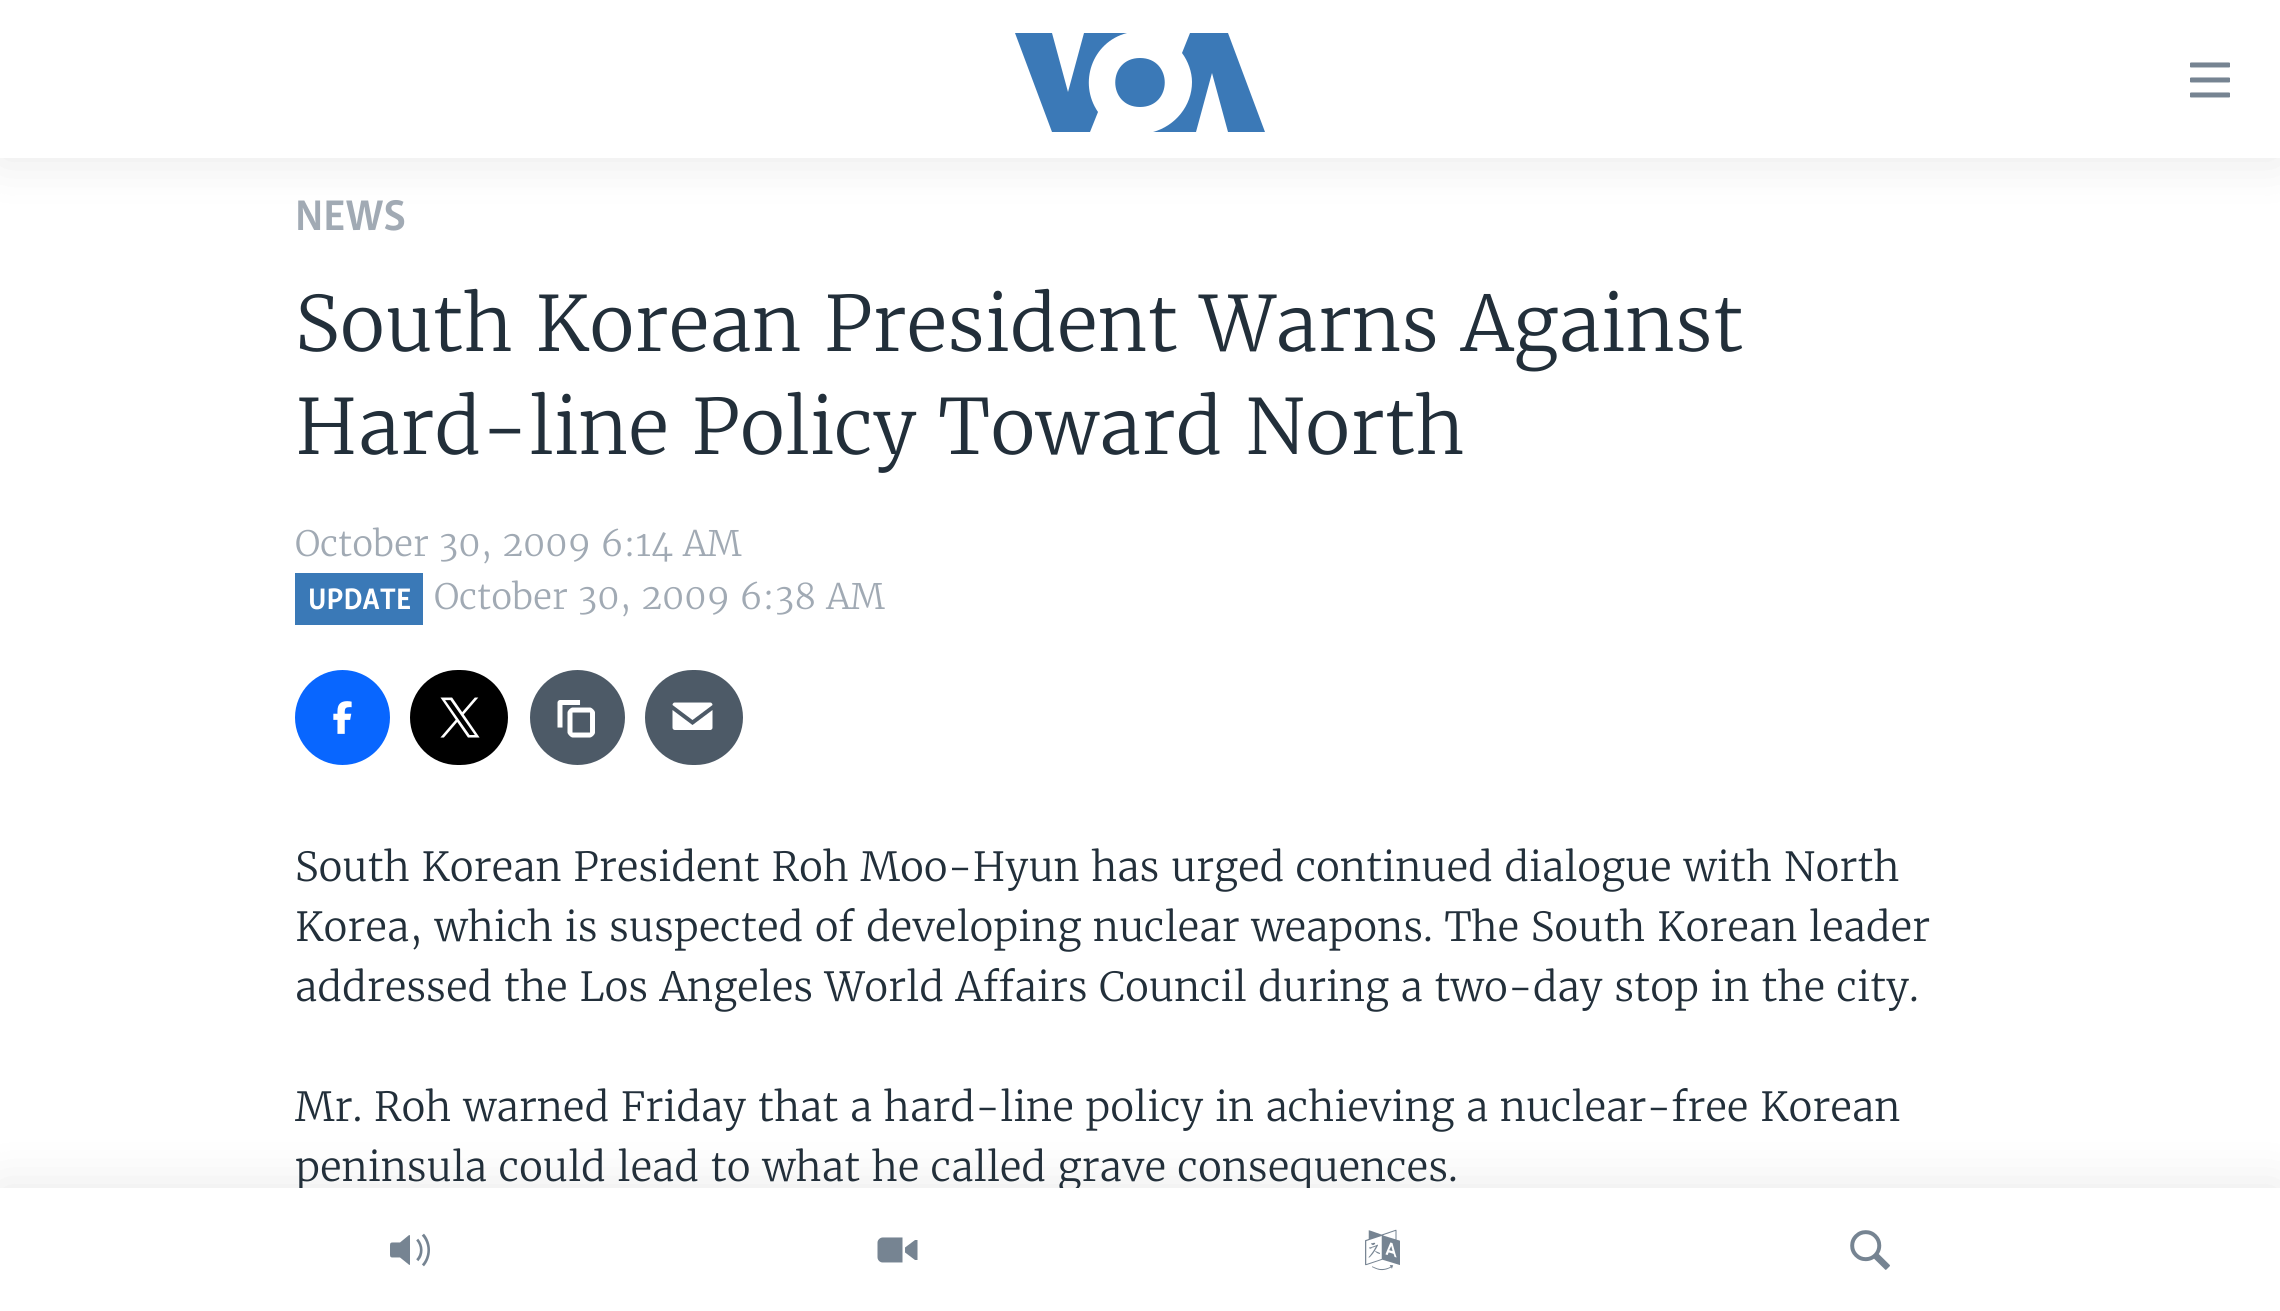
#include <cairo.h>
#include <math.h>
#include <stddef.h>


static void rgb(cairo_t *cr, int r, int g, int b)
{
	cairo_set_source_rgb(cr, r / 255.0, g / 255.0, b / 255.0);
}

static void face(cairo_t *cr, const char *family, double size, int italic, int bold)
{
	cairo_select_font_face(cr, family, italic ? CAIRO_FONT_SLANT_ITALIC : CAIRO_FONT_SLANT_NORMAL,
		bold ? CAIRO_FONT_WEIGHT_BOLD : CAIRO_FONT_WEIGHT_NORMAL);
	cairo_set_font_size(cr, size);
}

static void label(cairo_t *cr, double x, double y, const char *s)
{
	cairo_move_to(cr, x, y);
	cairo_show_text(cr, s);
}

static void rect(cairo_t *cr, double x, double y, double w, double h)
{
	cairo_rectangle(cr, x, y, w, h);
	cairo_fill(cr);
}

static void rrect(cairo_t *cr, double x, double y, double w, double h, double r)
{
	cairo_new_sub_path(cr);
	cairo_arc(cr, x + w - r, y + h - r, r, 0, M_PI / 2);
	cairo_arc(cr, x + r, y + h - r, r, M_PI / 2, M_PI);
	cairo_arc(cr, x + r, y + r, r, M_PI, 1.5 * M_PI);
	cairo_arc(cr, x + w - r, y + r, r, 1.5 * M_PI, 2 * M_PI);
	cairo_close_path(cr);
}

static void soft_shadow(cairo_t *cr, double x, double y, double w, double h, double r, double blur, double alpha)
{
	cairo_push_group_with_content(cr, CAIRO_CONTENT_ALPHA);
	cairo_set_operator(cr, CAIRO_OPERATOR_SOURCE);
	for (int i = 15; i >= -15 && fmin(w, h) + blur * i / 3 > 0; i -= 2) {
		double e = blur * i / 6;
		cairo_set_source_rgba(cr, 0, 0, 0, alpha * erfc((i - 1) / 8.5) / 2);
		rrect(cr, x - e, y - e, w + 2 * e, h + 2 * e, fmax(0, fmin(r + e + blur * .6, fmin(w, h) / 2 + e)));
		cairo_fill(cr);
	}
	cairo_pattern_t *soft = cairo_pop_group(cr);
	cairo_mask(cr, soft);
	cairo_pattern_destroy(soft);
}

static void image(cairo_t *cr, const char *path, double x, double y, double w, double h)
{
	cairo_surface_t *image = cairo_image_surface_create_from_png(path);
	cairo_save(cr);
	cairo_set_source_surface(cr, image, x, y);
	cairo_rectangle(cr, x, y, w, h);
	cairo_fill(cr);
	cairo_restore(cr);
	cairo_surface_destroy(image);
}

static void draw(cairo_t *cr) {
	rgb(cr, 255, 255, 255);
	cairo_paint(cr);
	rgb(cr, 0, 0, 0);
	soft_shadow(cr, 0, 0, 2280, 158, 0, 25, 0.1);
	rgb(cr, 255, 255, 255);
	rect(cr, 0, 0, 2280, 158);
	rgb(cr, 59, 121, 183);
	cairo_new_path(cr);
	cairo_move_to(cr, 1098, 112);
	cairo_line_to(cr, 1090, 132);
	cairo_line_to(cr, 1052, 132);
	cairo_line_to(cr, 1015, 33);
	cairo_line_to(cr, 1052, 33);
	cairo_line_to(cr, 1068, 92);
	cairo_line_to(cr, 1084, 33);
	cairo_line_to(cr, 1127, 33);
	cairo_curve_to(cr, 1092, 42, 1078, 83, 1098, 112);
	cairo_close_path(cr);
	cairo_move_to(cr, 1140, 58);
	cairo_curve_to(cr, 1107, 58, 1107, 107, 1140, 107);
	cairo_curve_to(cr, 1173, 107, 1173, 58, 1140, 58);
	cairo_close_path(cr);
	cairo_move_to(cr, 1192, 82);
	cairo_curve_to(cr, 1192, 106, 1175, 126, 1153, 132);
	cairo_line_to(cr, 1196, 132);
	cairo_line_to(cr, 1212, 73);
	cairo_line_to(cr, 1228, 132);
	cairo_line_to(cr, 1265, 132);
	cairo_line_to(cr, 1228, 33);
	cairo_line_to(cr, 1190, 33);
	cairo_line_to(cr, 1182, 53);
	cairo_curve_to(cr, 1188, 61, 1192, 72, 1192, 82);
	cairo_close_path(cr);
	cairo_fill(cr);
	image(cr, "image0.png", 2190, 62, 40, 36);
	rgb(cr, 0, 0, 0);
	soft_shadow(cr, 0, 1188, 2280, 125, 0, 25, 0.1);
	face(cr, "Merriweather Light", 40, 0, 0);
	rgb(cr, 34, 47, 58);
	label(cr, 295, 1181, "peninsula could lead to what he called grave consequences.");
	rgb(cr, 255, 255, 255);
	rect(cr, 0, 1188, 2280, 123);
	image(cr, "image1.png", 390, 1233, 40, 34);
	image(cr, "image2.png", 877, 1237, 41, 26);
	image(cr, "image3.png", 1365, 1229, 35, 42);
	image(cr, "image4.png", 1850, 1230, 40, 40);
	face(cr, "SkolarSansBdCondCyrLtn", 44, 0, 1);
	rgb(cr, 161, 170, 180);
	label(cr, 295, 230, "NEWS");
	face(cr, "Merriweather Light", 76, 0, 0);
	rgb(cr, 34, 47, 58);
	label(cr, 295, 351, "South Korean President Warns Against");
	label(cr, 295, 454, "Hard-line Policy Toward North");
	face(cr, "Merriweather Light", 35, 0, 0);
	rgb(cr, 161, 170, 180);
	label(cr, 295, 556, "October 30, 2009 6:14 AM");
	rgb(cr, 58, 121, 183);
	rect(cr, 295, 573, 128, 52);
	face(cr, "SkolarSansBdCondCyrLtn", 30.5, 0, 1);
	rgb(cr, 255, 255, 255);
	label(cr, 308, 609, "UPDATE");
	face(cr, "Merriweather Light", 35, 0, 0);
	rgb(cr, 161, 170, 180);
	label(cr, 434, 609, "October 30, 2009 6:38 AM");
	rgb(cr, 8, 102, 255);
	cairo_new_path(cr);
	cairo_arc(cr, 342.5, 717.5, 47.5, 0, 2 * M_PI);
	cairo_fill(cr);
	image(cr, "image5.png", 333, 701, 19, 33);
	rgb(cr, 0, 0, 0);
	rrect(cr, 410, 670, 98, 95, 47.5);
	cairo_fill(cr);
	image(cr, "image6.png", 440, 697, 40, 41);
	rgb(cr, 77, 90, 103);
	cairo_arc(cr, 577.5, 717.5, 47.5, 0, 2 * M_PI);
	cairo_fill(cr);
	image(cr, "image7.png", 557, 700, 38, 38);
	rrect(cr, 645, 670, 98, 95, 47.5);
	cairo_fill(cr);
	image(cr, "image8.png", 672, 702, 41, 28);
	face(cr, "Merriweather Light", 40, 0, 0);
	rgb(cr, 34, 47, 58);
	label(cr, 295, 881, "South Korean President Roh Moo-Hyun has urged continued dialogue with North");
	label(cr, 295, 941, "Korea, which is suspected of developing nuclear weapons. The South Korean leader");
	label(cr, 295, 1001, "addressed the Los Angeles World Affairs Council during a two-day stop in the city.");
	label(cr, 295, 1121, "Mr. Roh warned Friday that a hard-line policy in achieving a nuclear-free Korean");
}

int main(void) {
	cairo_surface_t *surface = cairo_image_surface_create(CAIRO_FORMAT_RGB24, 2280, 1311);
	cairo_t *cr = cairo_create(surface);
	cairo_font_options_t *options = cairo_font_options_create();
	cairo_font_options_set_hint_metrics(options, CAIRO_HINT_METRICS_OFF);
	cairo_font_options_set_hint_style(options, CAIRO_HINT_STYLE_NONE);
	cairo_set_font_options(cr, options);
	cairo_set_miter_limit(cr, 4);
	draw(cr);
	cairo_surface_write_to_png(surface, "render.png");
	cairo_font_options_destroy(options);
	cairo_destroy(cr);
	cairo_surface_destroy(surface);
	return 0;
}
